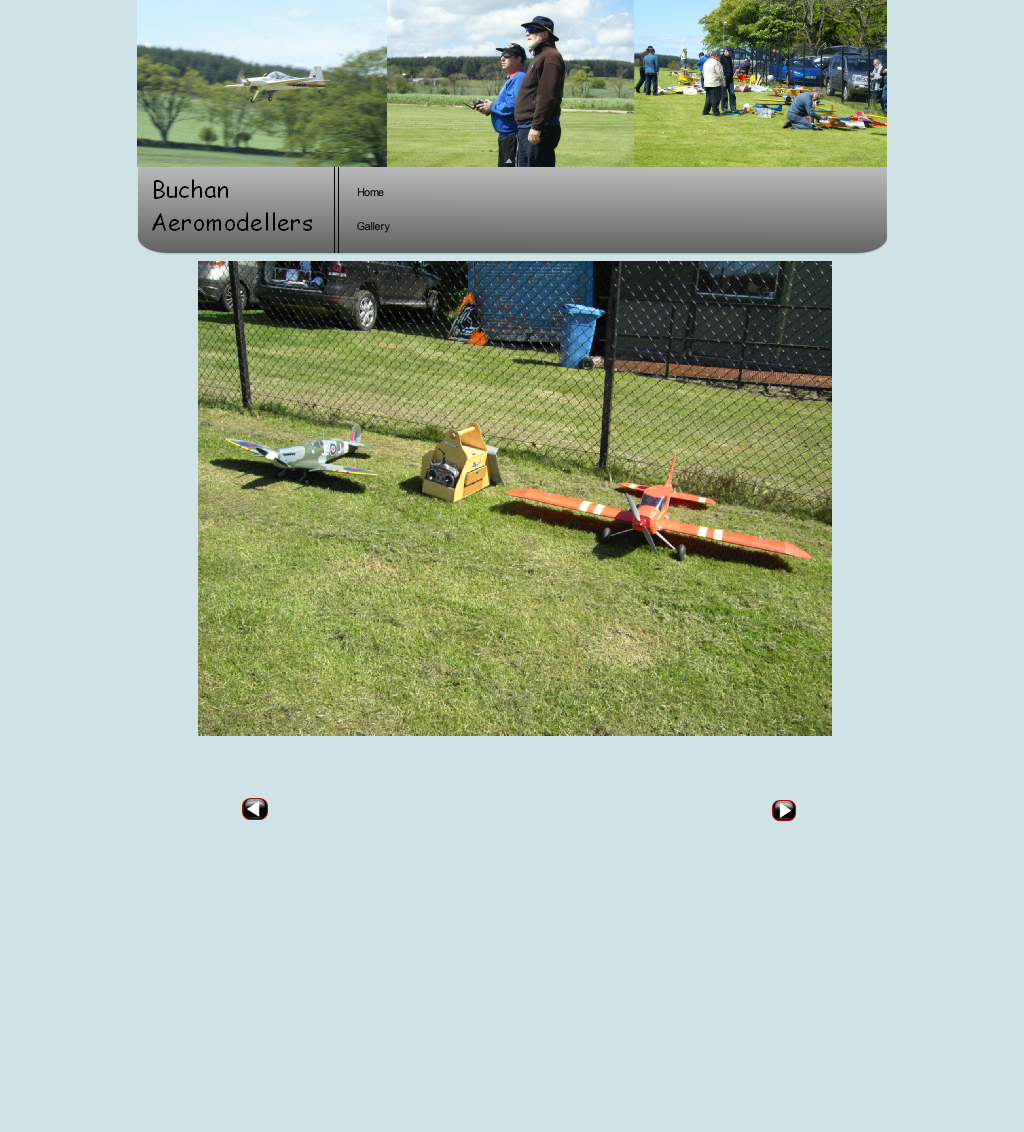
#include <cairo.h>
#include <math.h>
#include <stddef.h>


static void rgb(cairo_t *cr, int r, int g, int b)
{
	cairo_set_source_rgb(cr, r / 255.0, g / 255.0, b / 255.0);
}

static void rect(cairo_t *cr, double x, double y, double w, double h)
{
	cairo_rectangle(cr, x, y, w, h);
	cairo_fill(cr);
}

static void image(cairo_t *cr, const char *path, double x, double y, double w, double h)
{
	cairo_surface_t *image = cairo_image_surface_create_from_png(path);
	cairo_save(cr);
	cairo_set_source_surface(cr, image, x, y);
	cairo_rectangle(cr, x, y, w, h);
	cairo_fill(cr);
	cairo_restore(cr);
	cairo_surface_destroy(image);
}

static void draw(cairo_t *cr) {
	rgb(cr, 207, 226, 230);
	cairo_paint(cr);
	image(cr, "image2.png", 137, 167, 750, 88);
	rgb(cr, 0, 0, 0);
	rect(cr, 334, 164, 1, 89);
	rect(cr, 338, 164, 1, 89);
	image(cr, "image0.png", 137, 0, 250, 167);
	image(cr, "image1.png", 387, 0, 500, 167);
	image(cr, "image3.png", 152, 179, 160, 52);
	image(cr, "image4.png", 357, 188, 27, 9);
	image(cr, "image5.png", 357, 222, 33, 11);
	image(cr, "image6.png", 198, 261, 634, 475);
	image(cr, "image7.png", 242, 798, 26, 22);
	image(cr, "image8.png", 772, 800, 24, 21);
}

int main(void) {
	cairo_surface_t *surface = cairo_image_surface_create(CAIRO_FORMAT_RGB24, 1024, 1132);
	cairo_t *cr = cairo_create(surface);
	cairo_font_options_t *options = cairo_font_options_create();
	cairo_font_options_set_hint_metrics(options, CAIRO_HINT_METRICS_OFF);
	cairo_font_options_set_hint_style(options, CAIRO_HINT_STYLE_NONE);
	cairo_set_font_options(cr, options);
	cairo_set_miter_limit(cr, 4);
	draw(cr);
	cairo_surface_write_to_png(surface, "render.png");
	cairo_font_options_destroy(options);
	cairo_destroy(cr);
	cairo_surface_destroy(surface);
	return 0;
}
